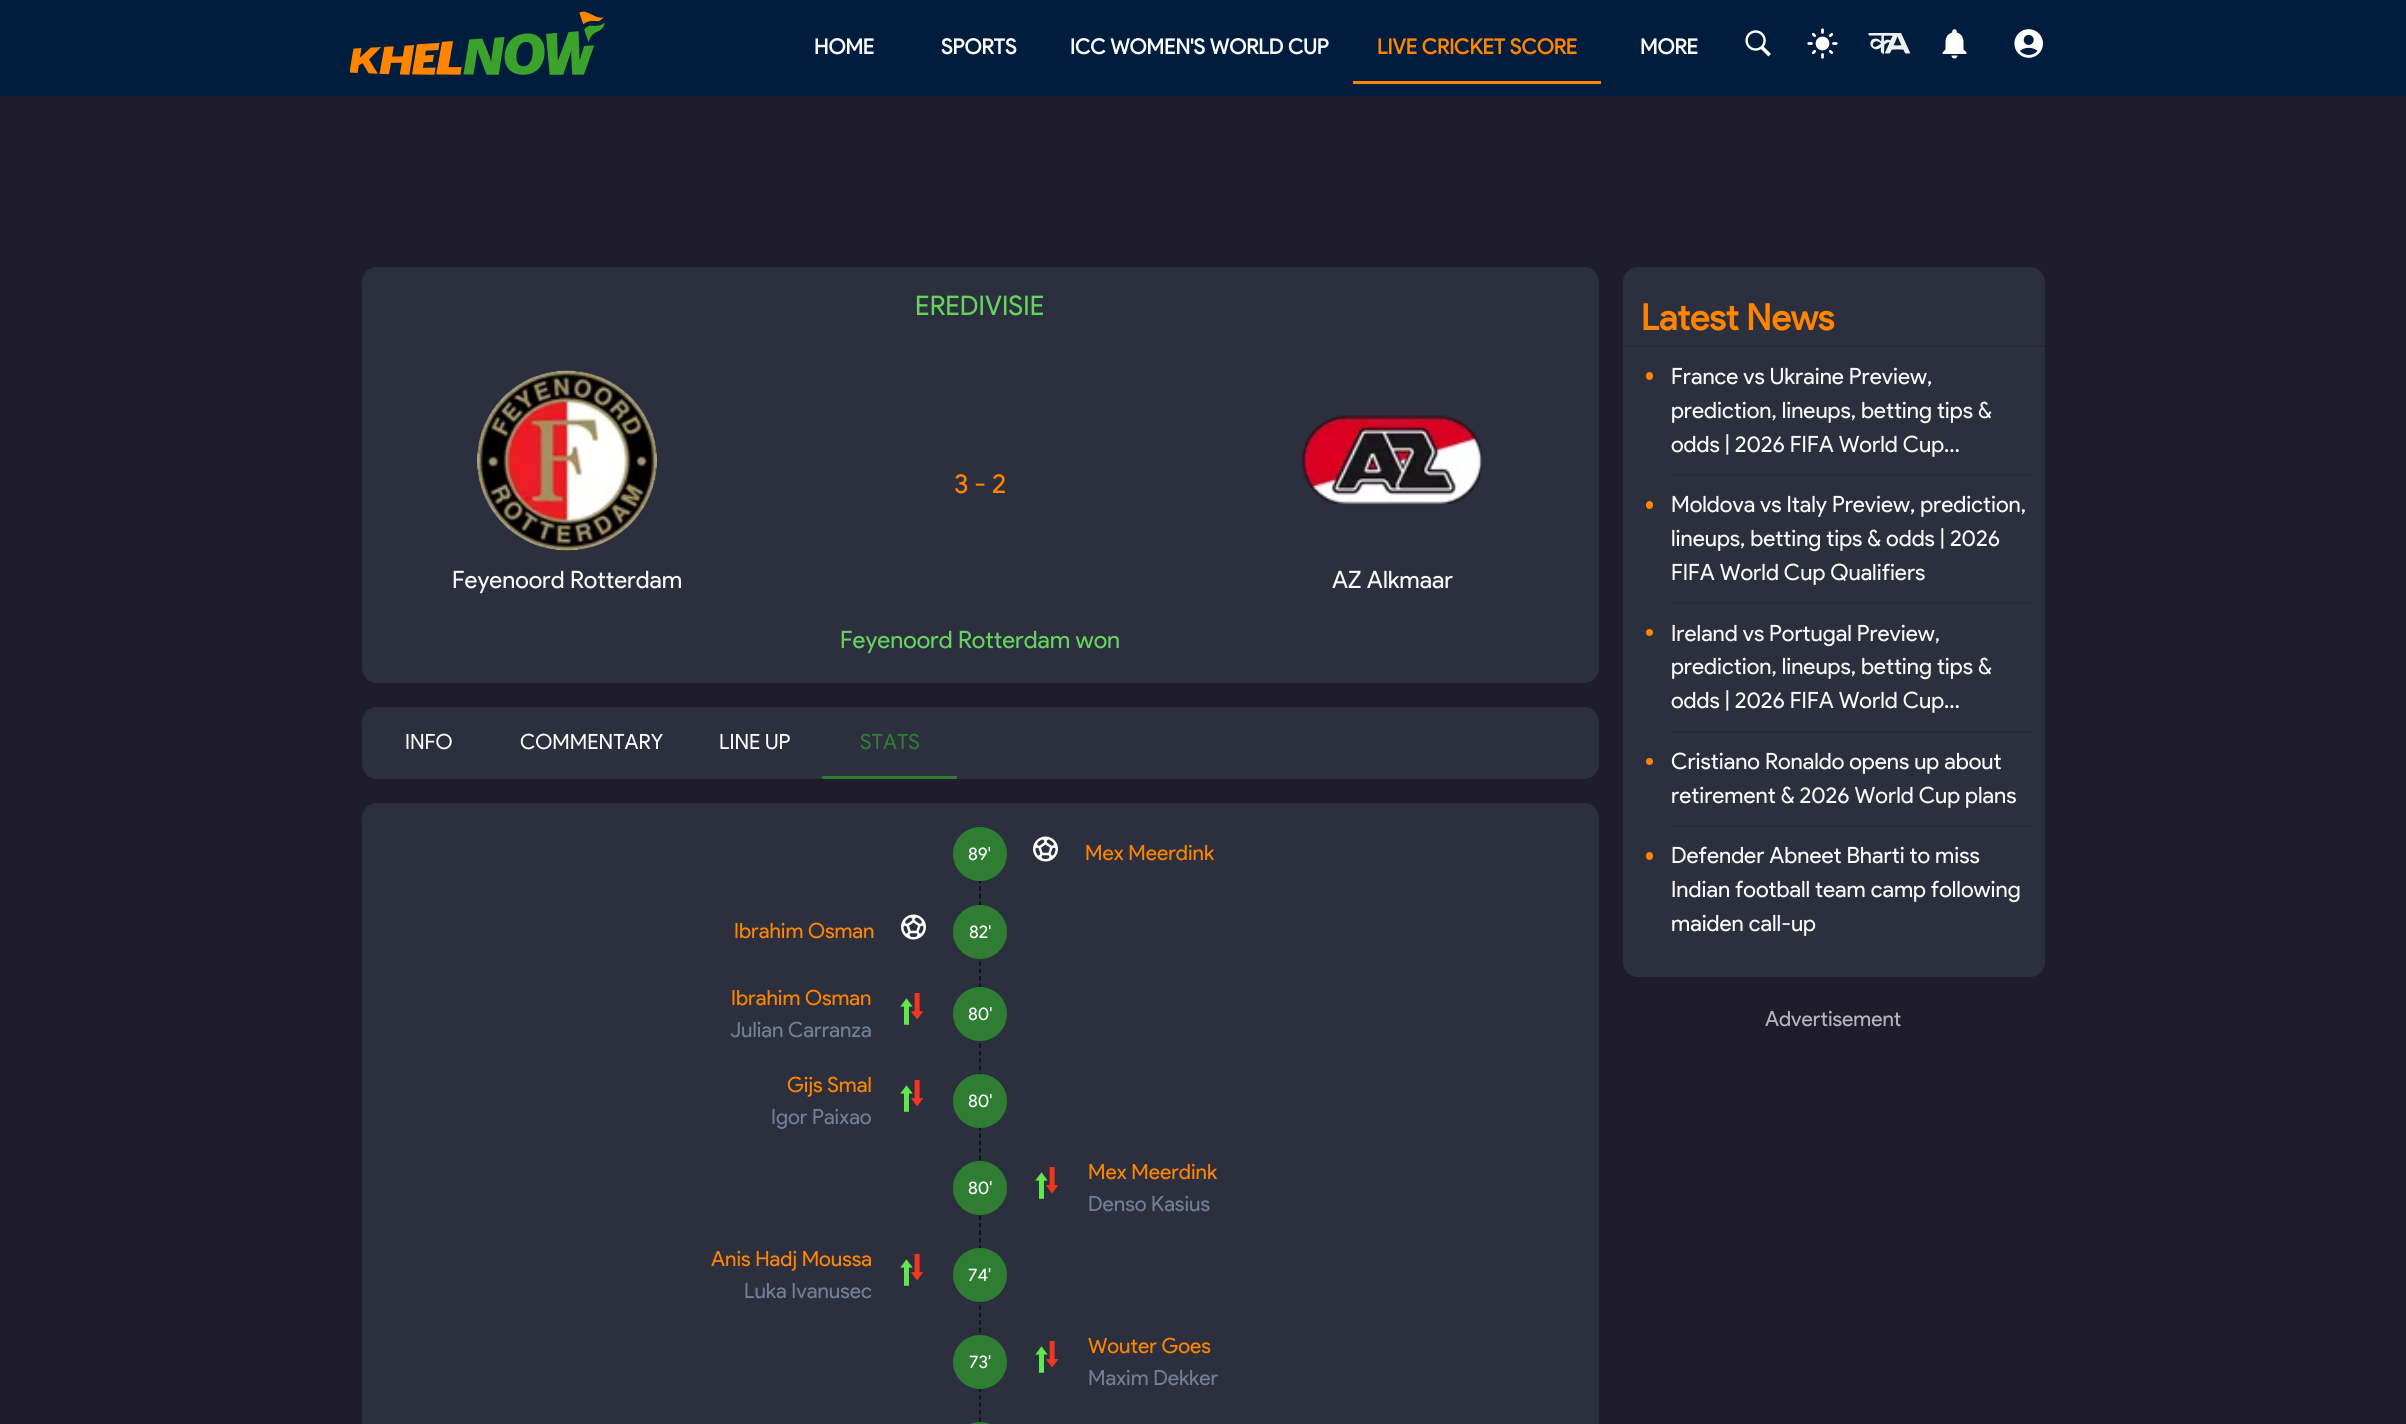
#include <cairo.h>
#include <math.h>
#include <stddef.h>


static void rgb(cairo_t *cr, int r, int g, int b)
{
	cairo_set_source_rgb(cr, r / 255.0, g / 255.0, b / 255.0);
}

static void face(cairo_t *cr, const char *family, double size, int italic, int bold)
{
	cairo_select_font_face(cr, family, italic ? CAIRO_FONT_SLANT_ITALIC : CAIRO_FONT_SLANT_NORMAL,
		bold ? CAIRO_FONT_WEIGHT_BOLD : CAIRO_FONT_WEIGHT_NORMAL);
	cairo_set_font_size(cr, size);
}

static void label(cairo_t *cr, double x, double y, const char *s)
{
	cairo_move_to(cr, x, y);
	cairo_show_text(cr, s);
}

static void rect(cairo_t *cr, double x, double y, double w, double h)
{
	cairo_rectangle(cr, x, y, w, h);
	cairo_fill(cr);
}

static void rrect(cairo_t *cr, double x, double y, double w, double h, double r)
{
	cairo_new_sub_path(cr);
	cairo_arc(cr, x + w - r, y + h - r, r, 0, M_PI / 2);
	cairo_arc(cr, x + r, y + h - r, r, M_PI / 2, M_PI);
	cairo_arc(cr, x + r, y + r, r, M_PI, 1.5 * M_PI);
	cairo_arc(cr, x + w - r, y + r, r, 1.5 * M_PI, 2 * M_PI);
	cairo_close_path(cr);
}

static void image(cairo_t *cr, const char *path, double x, double y, double w, double h)
{
	cairo_surface_t *image = cairo_image_surface_create_from_png(path);
	cairo_save(cr);
	cairo_set_source_surface(cr, image, x, y);
	cairo_rectangle(cr, x, y, w, h);
	cairo_fill(cr);
	cairo_restore(cr);
	cairo_surface_destroy(image);
}

static void draw(cairo_t *cr) {
	rgb(cr, 31, 29, 43);
	cairo_paint(cr);
	rgb(cr, 0, 29, 61);
	rect(cr, 0, 0, 2406, 96);
	image(cr, "image0.png", 350, 11, 255, 64);
	face(cr, "Product Sans", 21, 0, 1);
	rgb(cr, 251, 251, 251);
	label(cr, 814, 54, "HOME");
	label(cr, 941, 54, "SPORTS");
	label(cr, 1070, 54, "ICC WOMEN'S WORLD CUP");
	rgb(cr, 255, 133, 0);
	label(cr, 1377, 54, "LIVE CRICKET SCORE");
	rect(cr, 1353, 81, 248, 3);
	rgb(cr, 251, 251, 251);
	label(cr, 1640, 54, "MORE");
	image(cr, "image1.png", 1745, 30, 26, 27);
	image(cr, "image2.png", 1807, 28, 31, 31);
	image(cr, "image3.png", 1868, 32, 43, 23);
	image(cr, "image4.png", 1942, 29, 25, 30);
	image(cr, "image5.png", 2014, 29, 29, 29);
	rgb(cr, 44, 47, 62);
	rrect(cr, 362, 267, 1237, 416, 15);
	cairo_fill(cr);
	face(cr, "Product Sans", 27, 0, 0);
	rgb(cr, 101, 212, 94);
	label(cr, 915, 315, "EREDIVISIE");
	rgb(cr, 255, 133, 0);
	label(cr, 954, 493, "3 - 2");
	image(cr, "image6.png", 477, 370, 180, 181);
	face(cr, "Product Sans", 24, 0, 0);
	rgb(cr, 251, 251, 251);
	label(cr, 452, 588, "Feyenoord Rotterdam");
	image(cr, "image7.png", 1302, 415, 180, 90);
	label(cr, 1332, 588, "AZ Alkmaar");
	rgb(cr, 101, 212, 94);
	label(cr, 840, 648, "Feyenoord Rotterdam won");
	rgb(cr, 44, 47, 62);
	rrect(cr, 362, 707, 1237, 72, 15);
	cairo_fill(cr);
	face(cr, "Product Sans", 21, 0, 0);
	rgb(cr, 251, 251, 251);
	label(cr, 405, 749, "INFO");
	label(cr, 520, 749, "COMMENTARY");
	label(cr, 719, 749, "LINE UP");
	rgb(cr, 46, 125, 50);
	label(cr, 860, 749, "STATS");
	rect(cr, 822, 776, 135, 3);
	rgb(cr, 44, 47, 62);
	rrect(cr, 362, 803, 1237, 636, 15);
	cairo_fill(cr);
	cairo_new_path(cr);
	cairo_move_to(cr, 980, 826.5);
	cairo_line_to(cr, 980, 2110.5);
	rgb(cr, 39, 41, 55);
	cairo_set_line_width(cr, 1.5);
	cairo_set_dash(cr, (double[]){4.5, 2.98}, 2, 0);
	cairo_stroke(cr);
	cairo_new_path(cr);
	cairo_move_to(cr, 980, 826.5);
	cairo_line_to(cr, 980, 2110.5);
	cairo_set_source_rgba(cr, 0, 0, 0, 0.12);
	cairo_stroke(cr);
	cairo_new_path(cr);
	cairo_move_to(cr, 980, 826.5);
	cairo_line_to(cr, 980, 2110.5);
	cairo_stroke(cr);
	cairo_new_path(cr);
	cairo_move_to(cr, 980, 826.5);
	cairo_line_to(cr, 980, 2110.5);
	cairo_stroke(cr);
	cairo_new_path(cr);
	cairo_move_to(cr, 980, 826.5);
	cairo_line_to(cr, 980, 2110.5);
	cairo_stroke(cr);
	cairo_new_path(cr);
	cairo_move_to(cr, 980, 826.5);
	cairo_line_to(cr, 980, 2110.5);
	cairo_stroke(cr);
	cairo_new_path(cr);
	cairo_move_to(cr, 980, 826.5);
	cairo_line_to(cr, 980, 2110.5);
	cairo_stroke(cr);
	cairo_new_path(cr);
	cairo_move_to(cr, 980, 826.5);
	cairo_line_to(cr, 980, 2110.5);
	cairo_stroke(cr);
	rgb(cr, 46, 125, 50);
	rrect(cr, 953, 1422, 54, 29, 27);
	cairo_fill(cr);
	cairo_new_path(cr);
	cairo_move_to(cr, 980, 826.5);
	cairo_line_to(cr, 980, 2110.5);
	cairo_set_source_rgba(cr, 0, 0, 0, 0.12);
	cairo_stroke(cr);
	image(cr, "image8.png", 1033, 836, 25, 26);
	rgb(cr, 255, 133, 0);
	label(cr, 1085, 860, "Mex Meerdink");
	rgb(cr, 46, 125, 50);
	cairo_new_path(cr);
	cairo_arc(cr, 980, 854, 27, 0, 2 * M_PI);
	cairo_fill(cr);
	face(cr, "Product Sans", 18, 0, 0);
	rgb(cr, 251, 251, 251);
	label(cr, 968, 860, "89'");
	face(cr, "Product Sans", 21, 0, 0);
	rgb(cr, 255, 133, 0);
	label(cr, 734, 938, "Ibrahim Osman");
	image(cr, "image8.png", 901, 914, 25, 26);
	rgb(cr, 46, 125, 50);
	cairo_arc(cr, 980, 932, 27, 0, 2 * M_PI);
	cairo_fill(cr);
	face(cr, "Product Sans", 18, 0, 0);
	rgb(cr, 251, 251, 251);
	label(cr, 969, 938, "82'");
	face(cr, "Product Sans", 21, 0, 0);
	rgb(cr, 255, 133, 0);
	label(cr, 731, 1005, "Ibrahim Osman");
	rgb(cr, 113, 128, 150);
	label(cr, 730, 1037, "Julian Carranza");
	image(cr, "image9.png", 900, 993, 24, 32);
	rgb(cr, 46, 125, 50);
	cairo_arc(cr, 980, 1014, 27, 0, 2 * M_PI);
	cairo_fill(cr);
	face(cr, "Product Sans", 18, 0, 0);
	rgb(cr, 251, 251, 251);
	label(cr, 968, 1020, "80'");
	face(cr, "Product Sans", 21, 0, 0);
	rgb(cr, 255, 133, 0);
	label(cr, 787, 1092, "Gijs Smal");
	rgb(cr, 113, 128, 150);
	label(cr, 771, 1124, "Igor Paixao");
	image(cr, "image9.png", 900, 1080, 24, 32);
	rgb(cr, 46, 125, 50);
	cairo_arc(cr, 980, 1101, 27, 0, 2 * M_PI);
	cairo_fill(cr);
	face(cr, "Product Sans", 18, 0, 0);
	rgb(cr, 251, 251, 251);
	label(cr, 968, 1107, "80'");
	image(cr, "image9.png", 1035, 1167, 24, 32);
	face(cr, "Product Sans", 21, 0, 0);
	rgb(cr, 255, 133, 0);
	label(cr, 1088, 1179, "Mex Meerdink");
	rgb(cr, 113, 128, 150);
	label(cr, 1088, 1211, "Denso Kasius");
	rgb(cr, 46, 125, 50);
	cairo_new_path(cr);
	cairo_arc(cr, 980, 1188, 27, 0, 2 * M_PI);
	cairo_fill(cr);
	face(cr, "Product Sans", 18, 0, 0);
	rgb(cr, 251, 251, 251);
	label(cr, 968, 1194, "80'");
	face(cr, "Product Sans", 21, 0, 0);
	rgb(cr, 255, 133, 0);
	label(cr, 711, 1266, "Anis Hadj Moussa");
	rgb(cr, 113, 128, 150);
	label(cr, 744, 1298, "Luka Ivanusec");
	image(cr, "image9.png", 900, 1254, 24, 32);
	rgb(cr, 46, 125, 50);
	cairo_arc(cr, 980, 1275, 27, 0, 2 * M_PI);
	cairo_fill(cr);
	face(cr, "Product Sans", 18, 0, 0);
	rgb(cr, 251, 251, 251);
	label(cr, 968, 1281, "74'");
	image(cr, "image9.png", 1035, 1341, 24, 32);
	face(cr, "Product Sans", 21, 0, 0);
	rgb(cr, 255, 133, 0);
	label(cr, 1088, 1353, "Wouter Goes");
	rgb(cr, 113, 128, 150);
	label(cr, 1088, 1385, "Maxim Dekker");
	rgb(cr, 46, 125, 50);
	cairo_new_path(cr);
	cairo_arc(cr, 980, 1362, 27, 0, 2 * M_PI);
	cairo_fill(cr);
	face(cr, "Product Sans", 18, 0, 0);
	rgb(cr, 251, 251, 251);
	label(cr, 969, 1368, "73'");
	rgb(cr, 44, 47, 62);
	rrect(cr, 1623, 267, 422, 710, 15);
	cairo_fill(cr);
	face(cr, "Product Sans", 36, 0, 1);
	rgb(cr, 255, 133, 0);
	label(cr, 1641, 330, "Latest News");
	rgb(cr, 39, 41, 55);
	rect(cr, 1623, 345, 422, 2);
	rgb(cr, 255, 133, 0);
	rrect(cr, 1646, 372, 7, 8, 3.5);
	cairo_fill(cr);
	face(cr, "Product Sans", 22.5, 0, 0);
	rgb(cr, 251, 251, 251);
	label(cr, 1671, 384, "France vs Ukraine Preview,");
	label(cr, 1671, 418, "prediction, lineups, betting tips &");
	label(cr, 1671, 452, "odds | 2026 FIFA World Cup…");
	rgb(cr, 39, 41, 55);
	rect(cr, 1671, 474, 362, 2);
	rgb(cr, 255, 133, 0);
	rrect(cr, 1646, 501, 7, 8, 3.5);
	cairo_fill(cr);
	rgb(cr, 251, 251, 251);
	label(cr, 1671, 512, "Moldova vs Italy Preview, prediction,");
	label(cr, 1671, 546, "lineups, betting tips & odds | 2026");
	label(cr, 1671, 580, "FIFA World Cup Qualifiers");
	rgb(cr, 39, 41, 55);
	rect(cr, 1671, 602, 362, 2);
	rgb(cr, 255, 133, 0);
	cairo_new_path(cr);
	cairo_arc(cr, 1649.5, 632.5, 3.5, 0, 2 * M_PI);
	cairo_fill(cr);
	rgb(cr, 251, 251, 251);
	label(cr, 1671, 641, "Ireland vs Portugal Preview,");
	label(cr, 1671, 674, "prediction, lineups, betting tips &");
	label(cr, 1671, 708, "odds | 2026 FIFA World Cup…");
	rgb(cr, 39, 41, 55);
	rect(cr, 1671, 731, 362, 2);
	rgb(cr, 255, 133, 0);
	cairo_new_path(cr);
	cairo_arc(cr, 1649.5, 761.5, 3.5, 0, 2 * M_PI);
	cairo_fill(cr);
	rgb(cr, 251, 251, 251);
	label(cr, 1671, 769, "Cristiano Ronaldo opens up about");
	label(cr, 1671, 803, "retirement & 2026 World Cup plans");
	rgb(cr, 39, 41, 55);
	rect(cr, 1671, 825, 362, 2);
	rgb(cr, 255, 133, 0);
	rrect(cr, 1646, 852, 7, 8, 3.5);
	cairo_fill(cr);
	rgb(cr, 251, 251, 251);
	label(cr, 1671, 863, "Defender Abneet Bharti to miss");
	label(cr, 1671, 897, "Indian football team camp following");
	label(cr, 1671, 931, "maiden call-up");
	face(cr, "Product Sans", 21, 0, 0);
	rgb(cr, 183, 183, 187);
	label(cr, 1765, 1026, "Advertisement");
}

int main(void) {
	cairo_surface_t *surface = cairo_image_surface_create(CAIRO_FORMAT_RGB24, 2406, 1424);
	cairo_t *cr = cairo_create(surface);
	cairo_font_options_t *options = cairo_font_options_create();
	cairo_font_options_set_hint_metrics(options, CAIRO_HINT_METRICS_OFF);
	cairo_font_options_set_hint_style(options, CAIRO_HINT_STYLE_NONE);
	cairo_set_font_options(cr, options);
	cairo_set_miter_limit(cr, 4);
	draw(cr);
	cairo_surface_write_to_png(surface, "render.png");
	cairo_font_options_destroy(options);
	cairo_destroy(cr);
	cairo_surface_destroy(surface);
	return 0;
}
